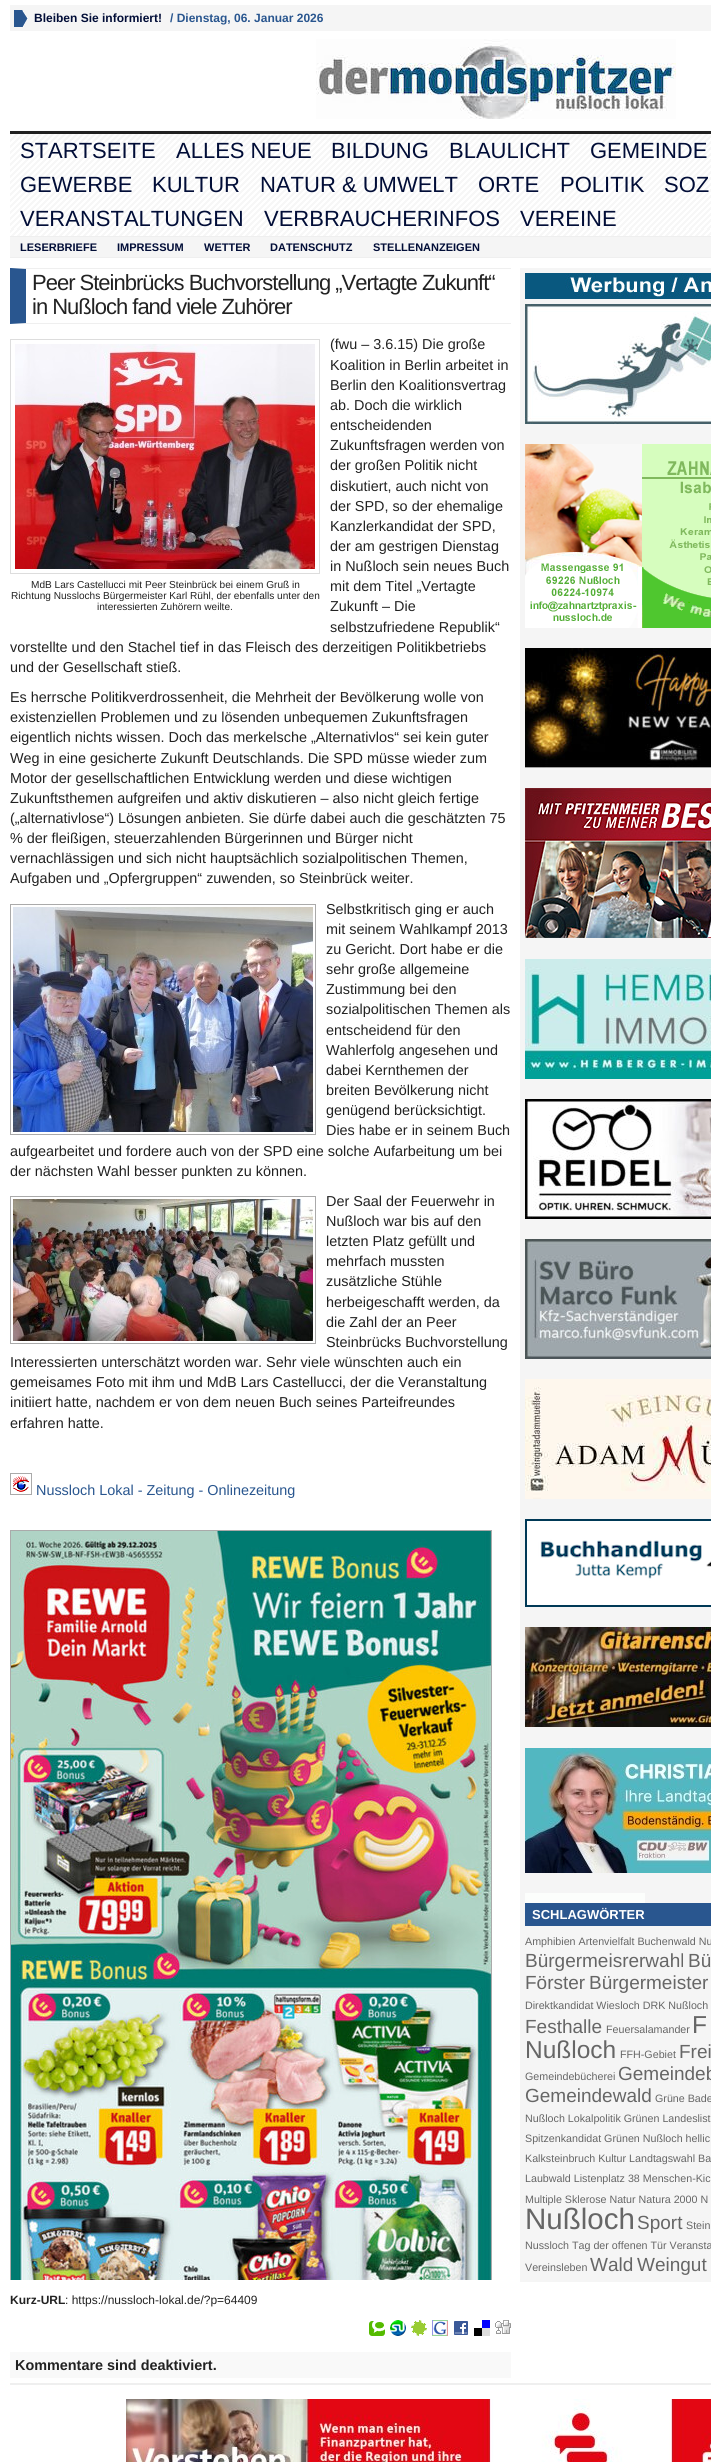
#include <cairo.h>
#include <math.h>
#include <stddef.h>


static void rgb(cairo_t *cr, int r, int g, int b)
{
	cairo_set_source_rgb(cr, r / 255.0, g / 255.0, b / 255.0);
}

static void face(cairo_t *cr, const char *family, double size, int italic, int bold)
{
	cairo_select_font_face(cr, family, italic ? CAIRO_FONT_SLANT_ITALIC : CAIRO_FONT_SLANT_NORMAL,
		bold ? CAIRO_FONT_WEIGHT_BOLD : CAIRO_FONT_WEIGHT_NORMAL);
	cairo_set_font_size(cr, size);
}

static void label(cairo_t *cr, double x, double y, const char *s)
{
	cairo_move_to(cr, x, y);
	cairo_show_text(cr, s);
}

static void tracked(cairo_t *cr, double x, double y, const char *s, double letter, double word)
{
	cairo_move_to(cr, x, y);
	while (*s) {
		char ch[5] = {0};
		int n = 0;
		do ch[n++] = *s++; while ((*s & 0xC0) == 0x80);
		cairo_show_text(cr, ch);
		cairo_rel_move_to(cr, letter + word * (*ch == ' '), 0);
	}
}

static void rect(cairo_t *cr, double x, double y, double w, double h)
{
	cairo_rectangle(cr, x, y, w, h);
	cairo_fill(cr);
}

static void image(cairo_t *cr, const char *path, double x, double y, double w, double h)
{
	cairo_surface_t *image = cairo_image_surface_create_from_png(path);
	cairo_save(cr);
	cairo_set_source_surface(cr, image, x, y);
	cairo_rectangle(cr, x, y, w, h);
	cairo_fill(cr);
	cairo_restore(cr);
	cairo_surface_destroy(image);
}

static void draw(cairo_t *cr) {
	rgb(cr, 255, 255, 255);
	cairo_paint(cr);
	rgb(cr, 245, 245, 245);
	rect(cr, 10, 5, 701, 26);
	image(cr, "image0.png", 14, 10, 14, 17);
	face(cr, "Liberation Sans", 12, 0, 1);
	rgb(cr, 1, 13, 55);
	label(cr, 34, 22, "Bleiben Sie informiert!");
	rgb(cr, 41, 86, 143);
	label(cr, 170, 22, "/ Dienstag, 06. Januar 2026");
	rgb(cr, 34, 34, 34);
	rect(cr, 10, 131, 701, 3);
	image(cr, "image1.png", 316, 39, 360, 80);
	image(cr, "image2.png", 10, 134, 701, 102);
	rgb(cr, 239, 239, 239);
	rect(cr, 10, 236, 701, 1);
	face(cr, "Liberation Sans", 22, 0, 0);
	rgb(cr, 1, 13, 55);
	label(cr, 20, 158, "STARTSEITE");
	label(cr, 176, 158, "ALLES NEUE");
	label(cr, 331, 158, "BILDUNG");
	label(cr, 449, 158, "BLAULICHT");
	label(cr, 590, 158, "GEMEINDE");
	label(cr, 20, 192, "GEWERBE");
	label(cr, 152, 192, "KULTUR");
	label(cr, 260, 192, "NATUR & UMWELT");
	label(cr, 478, 192, "ORTE");
	label(cr, 560, 192, "POLITIK");
	label(cr, 664, 192, "SOZ");
	label(cr, 20, 226, "VERANSTALTUNGEN");
	label(cr, 264, 226, "VERBRAUCHERINFOS");
	label(cr, 520, 226, "VEREINE");
	rgb(cr, 245, 245, 245);
	rect(cr, 10, 237, 701, 20);
	rgb(cr, 239, 239, 239);
	rect(cr, 10, 257, 701, 1);
	face(cr, "Liberation Sans", 11, 0, 1);
	rgb(cr, 1, 13, 55);
	label(cr, 20, 251, "LESERBRIEFE");
	label(cr, 117, 251, "IMPRESSUM");
	label(cr, 204, 251, "WETTER");
	label(cr, 270, 251, "DATENSCHUTZ");
	label(cr, 373, 251, "STELLENANZEIGEN");
	rgb(cr, 239, 239, 239);
	cairo_new_path(cr);
	cairo_move_to(cr, 10, 268);
	cairo_line_to(cr, 511, 268);
	cairo_line_to(cr, 511, 269);
	cairo_line_to(cr, 26, 269);
	cairo_close_path(cr);
	cairo_fill(cr);
	cairo_new_path(cr);
	cairo_move_to(cr, 511, 324);
	cairo_line_to(cr, 10, 324);
	cairo_line_to(cr, 26, 323);
	cairo_line_to(cr, 511, 323);
	cairo_close_path(cr);
	cairo_fill(cr);
	rgb(cr, 41, 86, 143);
	cairo_new_path(cr);
	cairo_move_to(cr, 10, 324);
	cairo_line_to(cr, 10, 268);
	cairo_line_to(cr, 26, 269);
	cairo_line_to(cr, 26, 323);
	cairo_close_path(cr);
	cairo_fill(cr);
	face(cr, "Liberation Sans", 22, 0, 0);
	rgb(cr, 34, 34, 34);
	tracked(cr, 32, 290, "Peer Steinbrücks Buchvorstellung „Vertagte Zukunft“", -1, 0);
	tracked(cr, 32, 314, "in Nußloch fand viele Zuhörer", -1, 0);
	face(cr, "Liberation Sans", 14.4, 0, 0);
	label(cr, 330, 349, "(fwu – 3.6.15) Die große");
	label(cr, 330, 370, "Koalition in Berlin arbeitet in");
	label(cr, 330, 390, "Berlin den Koalitionsvertrag");
	label(cr, 330, 410, "ab. Doch die wirklich");
	label(cr, 330, 430, "entscheidenden");
	label(cr, 330, 450, "Zukunftsfragen werden von");
	label(cr, 330, 470, "der großen Politik nicht");
	label(cr, 330, 491, "diskutiert, auch nicht von");
	label(cr, 330, 511, "der SPD, so der ehemalige");
	label(cr, 330, 531, "Kanzlerkandidat der SPD,");
	label(cr, 330, 551, "der am gestrigen Dienstag");
	label(cr, 330, 571, "in Nußloch sein neues Buch");
	label(cr, 330, 591, "mit dem Titel „Vertagte");
	label(cr, 330, 611, "Zukunft – Die");
	label(cr, 330, 632, "selbstzufriedene Republik“");
	label(cr, 10, 652, "vorstellte und den Stachel tief in das Fleisch des derzeitigen Politikbetriebs");
	label(cr, 10, 672, "und der Gesellschaft stieß.");
	cairo_rectangle(cr, 10.5, 339.5, 309, 234);
	rgb(cr, 221, 221, 221);
	cairo_set_line_width(cr, 1);
	cairo_stroke(cr);
	image(cr, "image3.png", 15, 344, 300, 225);
	face(cr, "Liberation Sans", 10.1, 0, 0);
	rgb(cr, 34, 34, 34);
	label(cr, 31, 588, "MdB Lars Castellucci mit Peer Steinbrück bei einem Gruß in");
	label(cr, 11, 599, "Richtung Nusslochs Bürgermeister Karl Rühl, der ebenfalls unter den");
	label(cr, 97, 610, "interessierten Zuhörern weilte.");
	face(cr, "Liberation Sans", 14.4, 0, 0);
	label(cr, 10, 702, "Es herrsche Politikverdrossenheit, die Mehrheit der Bevölkerung wolle von");
	label(cr, 10, 722, "existenziellen Problemen und zu lösenden unbequemen Zukunftsfragen");
	label(cr, 10, 742, "eigentlich nichts wissen. Doch das merkelsche „Alternativlos“ sei kein guter");
	label(cr, 10, 763, "Weg in eine gesicherte Zukunft Deutschlands. Die SPD müsse wieder zum");
	label(cr, 10, 783, "Motor der gesellschaftlichen Entwicklung werden und diese wichtigen");
	label(cr, 10, 803, "Zukunftsthemen aufgreifen und aktiv diskutieren – also nicht gleich fertige");
	label(cr, 10, 823, "(„alternativlose“) Lösungen anbieten. Sie dürfe dabei auch die geschätzten 75");
	label(cr, 10, 843, "% der fleißigen, steuerzahlenden Bürgerinnen und Bürger nicht");
	label(cr, 10, 863, "vernachlässigen und sich nicht hauptsächlich sozialpolitischen Themen,");
	label(cr, 10, 883, "Aufgaben und „Opfergruppen“ zuwenden, so Steinbrück weiter.");
	cairo_rectangle(cr, 10.5, 904.5, 305, 230);
	rgb(cr, 170, 170, 170);
	cairo_stroke(cr);
	image(cr, "image4.png", 13, 907, 300, 225);
	rgb(cr, 34, 34, 34);
	label(cr, 326, 914, "Selbstkritisch ging er auch");
	label(cr, 326, 934, "mit seinem Wahlkampf 2013");
	label(cr, 326, 954, "zu Gericht. Dort habe er die");
	label(cr, 326, 974, "sehr große allgemeine");
	label(cr, 326, 994, "Zustimmung bei den");
	label(cr, 326, 1014, "sozialpolitischen Themen als");
	label(cr, 326, 1035, "entscheidend für den");
	label(cr, 326, 1055, "Wahlerfolg angesehen und");
	label(cr, 326, 1075, "dabei Kernthemen der");
	label(cr, 326, 1095, "breiten Bevölkerung nicht");
	label(cr, 326, 1115, "genügend berücksichtigt.");
	label(cr, 326, 1135, "Dies habe er in seinem Buch");
	label(cr, 10, 1156, "aufgearbeitet und fordere auch von der SPD eine solche Aufarbeitung um bei");
	label(cr, 10, 1176, "der nächsten Wahl besser punkten zu können.");
	cairo_rectangle(cr, 10.5, 1196.5, 305, 147);
	rgb(cr, 170, 170, 170);
	cairo_stroke(cr);
	image(cr, "image5.png", 13, 1199, 300, 142);
	rgb(cr, 34, 34, 34);
	label(cr, 326, 1206, "Der Saal der Feuerwehr in");
	label(cr, 326, 1226, "Nußloch war bis auf den");
	label(cr, 326, 1246, "letzten Platz gefüllt und");
	label(cr, 326, 1266, "mehrfach mussten");
	label(cr, 326, 1286, "zusätzliche Stühle");
	label(cr, 326, 1307, "herbeigeschafft werden, da");
	label(cr, 326, 1327, "die Zahl der an Peer");
	label(cr, 326, 1347, "Steinbrücks Buchvorstellung");
	label(cr, 10, 1367, "Interessierten unterschätzt worden war. Sehr viele wünschten auch ein");
	label(cr, 10, 1387, "gemeisames Foto mit ihm und MdB Lars Castellucci, der die Veranstaltung");
	label(cr, 10, 1407, "initiiert hatte, nachdem er von dem neuen Buch seines Parteifreundes");
	label(cr, 10, 1428, "erfahren hatte.");
	cairo_rectangle(cr, 10.5, 1473.5, 21, 21);
	rgb(cr, 170, 170, 170);
	cairo_stroke(cr);
	image(cr, "image6.png", 13, 1476, 16, 16);
	rgb(cr, 41, 86, 143);
	label(cr, 36, 1495, "Nussloch Lokal - Zeitung - Onlinezeitung");
	face(cr, "Liberation Sans", 12, 0, 1);
	rgb(cr, 34, 34, 34);
	label(cr, 10, 2304, "Kurz-URL");
	image(cr, "image8.png", 369, 2321, 16, 15);
	image(cr, "image9.png", 390, 2320, 16, 16);
	image(cr, "image10.png", 411, 2320, 16, 16);
	image(cr, "image11.png", 432, 2320, 16, 16);
	image(cr, "image12.png", 454, 2321, 14, 14);
	image(cr, "image13.png", 474, 2320, 16, 16);
	rgb(cr, 249, 249, 249);
	rect(cr, 10, 2352, 501, 26);
	cairo_save(cr);
	cairo_rectangle(cr, 10, 1530, 500, 750);
	cairo_clip(cr);
	cairo_rectangle(cr, 10.5, 1530.5, 481, 849);
	rgb(cr, 170, 170, 170);
	cairo_stroke(cr);
	cairo_restore(cr);
	image(cr, "image7.png", 11, 1531, 480, 749);
	face(cr, "Liberation Sans", 12, 0, 0);
	rgb(cr, 34, 34, 34);
	label(cr, 65, 2304, ": https://nussloch-lokal.de/?p=64409");
	image(cr, "image14.png", 495, 2320, 16, 14);
	face(cr, "Liberation Sans", 14.4, 0, 1);
	label(cr, 15, 2370, "Kommentare sind deaktiviert.");
	rgb(cr, 245, 245, 245);
	rect(cr, 520, 268, 191, 2014);
	image(cr, "image15.png", 525, 273, 186, 26);
	image(cr, "image16.png", 525, 304, 186, 120);
	image(cr, "image17.png", 525, 444, 186, 184);
	image(cr, "image18.png", 525, 648, 186, 120);
	image(cr, "image19.png", 525, 788, 186, 150);
	image(cr, "image20.png", 525, 959, 186, 120);
	image(cr, "image21.png", 525, 1099, 186, 120);
	image(cr, "image22.png", 525, 1239, 186, 120);
	image(cr, "image23.png", 525, 1379, 186, 120);
	image(cr, "image24.png", 525, 1519, 186, 88);
	image(cr, "image25.png", 525, 1627, 186, 100);
	image(cr, "image26.png", 525, 1748, 186, 125);
	rgb(cr, 252, 254, 252);
	rect(cr, 525, 1893, 120, 10);
	rgb(cr, 41, 86, 143);
	rect(cr, 525, 1903, 186, 23);
	face(cr, "Liberation Sans", 13, 0, 1);
	rgb(cr, 255, 255, 255);
	label(cr, 532, 1919, "SCHLAGWÖRTER");
	face(cr, "Liberation Sans", 10.7, 0, 0);
	rgb(cr, 102, 102, 102);
	label(cr, 525, 1945, "Amphibien Artenvielfalt Buchenwald Nu");
	face(cr, "Liberation Sans", 19, 0, 0);
	label(cr, 525, 1967, "Bürgermeisrerwahl");
	label(cr, 688, 1967, "Bü");
	label(cr, 525, 1989, "Förster");
	label(cr, 589, 1989, "Bürgermeister");
	face(cr, "Liberation Sans", 10.7, 0, 0);
	label(cr, 525, 2009, "Direktkandidat Wiesloch DRK Nußloch");
	face(cr, "Liberation Sans", 19, 0, 0);
	label(cr, 525, 2033, "Festhalle");
	face(cr, "Liberation Sans", 10.7, 0, 0);
	label(cr, 606, 2033, "Feuersalamander");
	face(cr, "Liberation Sans", 24.5, 0, 0);
	label(cr, 692, 2033, "F");
	label(cr, 525, 2058, "Nußloch");
	face(cr, "Liberation Sans", 10.7, 0, 0);
	label(cr, 620, 2058, "FFH-Gebiet");
	face(cr, "Liberation Sans", 19, 0, 0);
	label(cr, 679, 2058, "Frei");
	face(cr, "Liberation Sans", 10.7, 0, 0);
	label(cr, 525, 2080, "Gemeindebücherei");
	face(cr, "Liberation Sans", 19, 0, 0);
	label(cr, 618, 2080, "Gemeindeb");
	label(cr, 525, 2102, "Gemeindewald");
	face(cr, "Liberation Sans", 10.7, 0, 0);
	label(cr, 655, 2102, "Grüne Bade");
	label(cr, 525, 2122, "Nußloch Lokalpolitik Grünen Landeslist");
	label(cr, 525, 2142, "Spitzenkandidat Grünen Nußloch hellic");
	label(cr, 525, 2162, "Kalksteinbruch Kultur Landtagswahl Ba");
	label(cr, 525, 2182, "Laubwald Listenplatz 38 Menschen-Kic");
	label(cr, 525, 2203, "Multiple Sklerose Natur Natura 2000 N");
	face(cr, "Liberation Sans", 29.5, 0, 0);
	label(cr, 525, 2229, "Nußloch");
	face(cr, "Liberation Sans", 19, 0, 0);
	label(cr, 637, 2229, "Sport");
	face(cr, "Liberation Sans", 10.7, 0, 0);
	label(cr, 686, 2229, "Stein");
	label(cr, 525, 2249, "Nussloch Tag der offenen Tür Veransta");
	label(cr, 525, 2271, "Vereinsleben");
	face(cr, "Liberation Sans", 19, 0, 0);
	label(cr, 590, 2271, "Wald");
	label(cr, 637, 2271, "Weingut");
	rgb(cr, 239, 239, 239);
	rect(cr, 10, 2383, 701, 2);
	image(cr, "image27.png", 126, 2399, 585, 63);
}

int main(void) {
	cairo_surface_t *surface = cairo_image_surface_create(CAIRO_FORMAT_RGB24, 711, 2462);
	cairo_t *cr = cairo_create(surface);
	cairo_font_options_t *options = cairo_font_options_create();
	cairo_font_options_set_hint_metrics(options, CAIRO_HINT_METRICS_OFF);
	cairo_font_options_set_hint_style(options, CAIRO_HINT_STYLE_NONE);
	cairo_set_font_options(cr, options);
	cairo_set_miter_limit(cr, 4);
	draw(cr);
	cairo_surface_write_to_png(surface, "render.png");
	cairo_font_options_destroy(options);
	cairo_destroy(cr);
	cairo_surface_destroy(surface);
	return 0;
}
